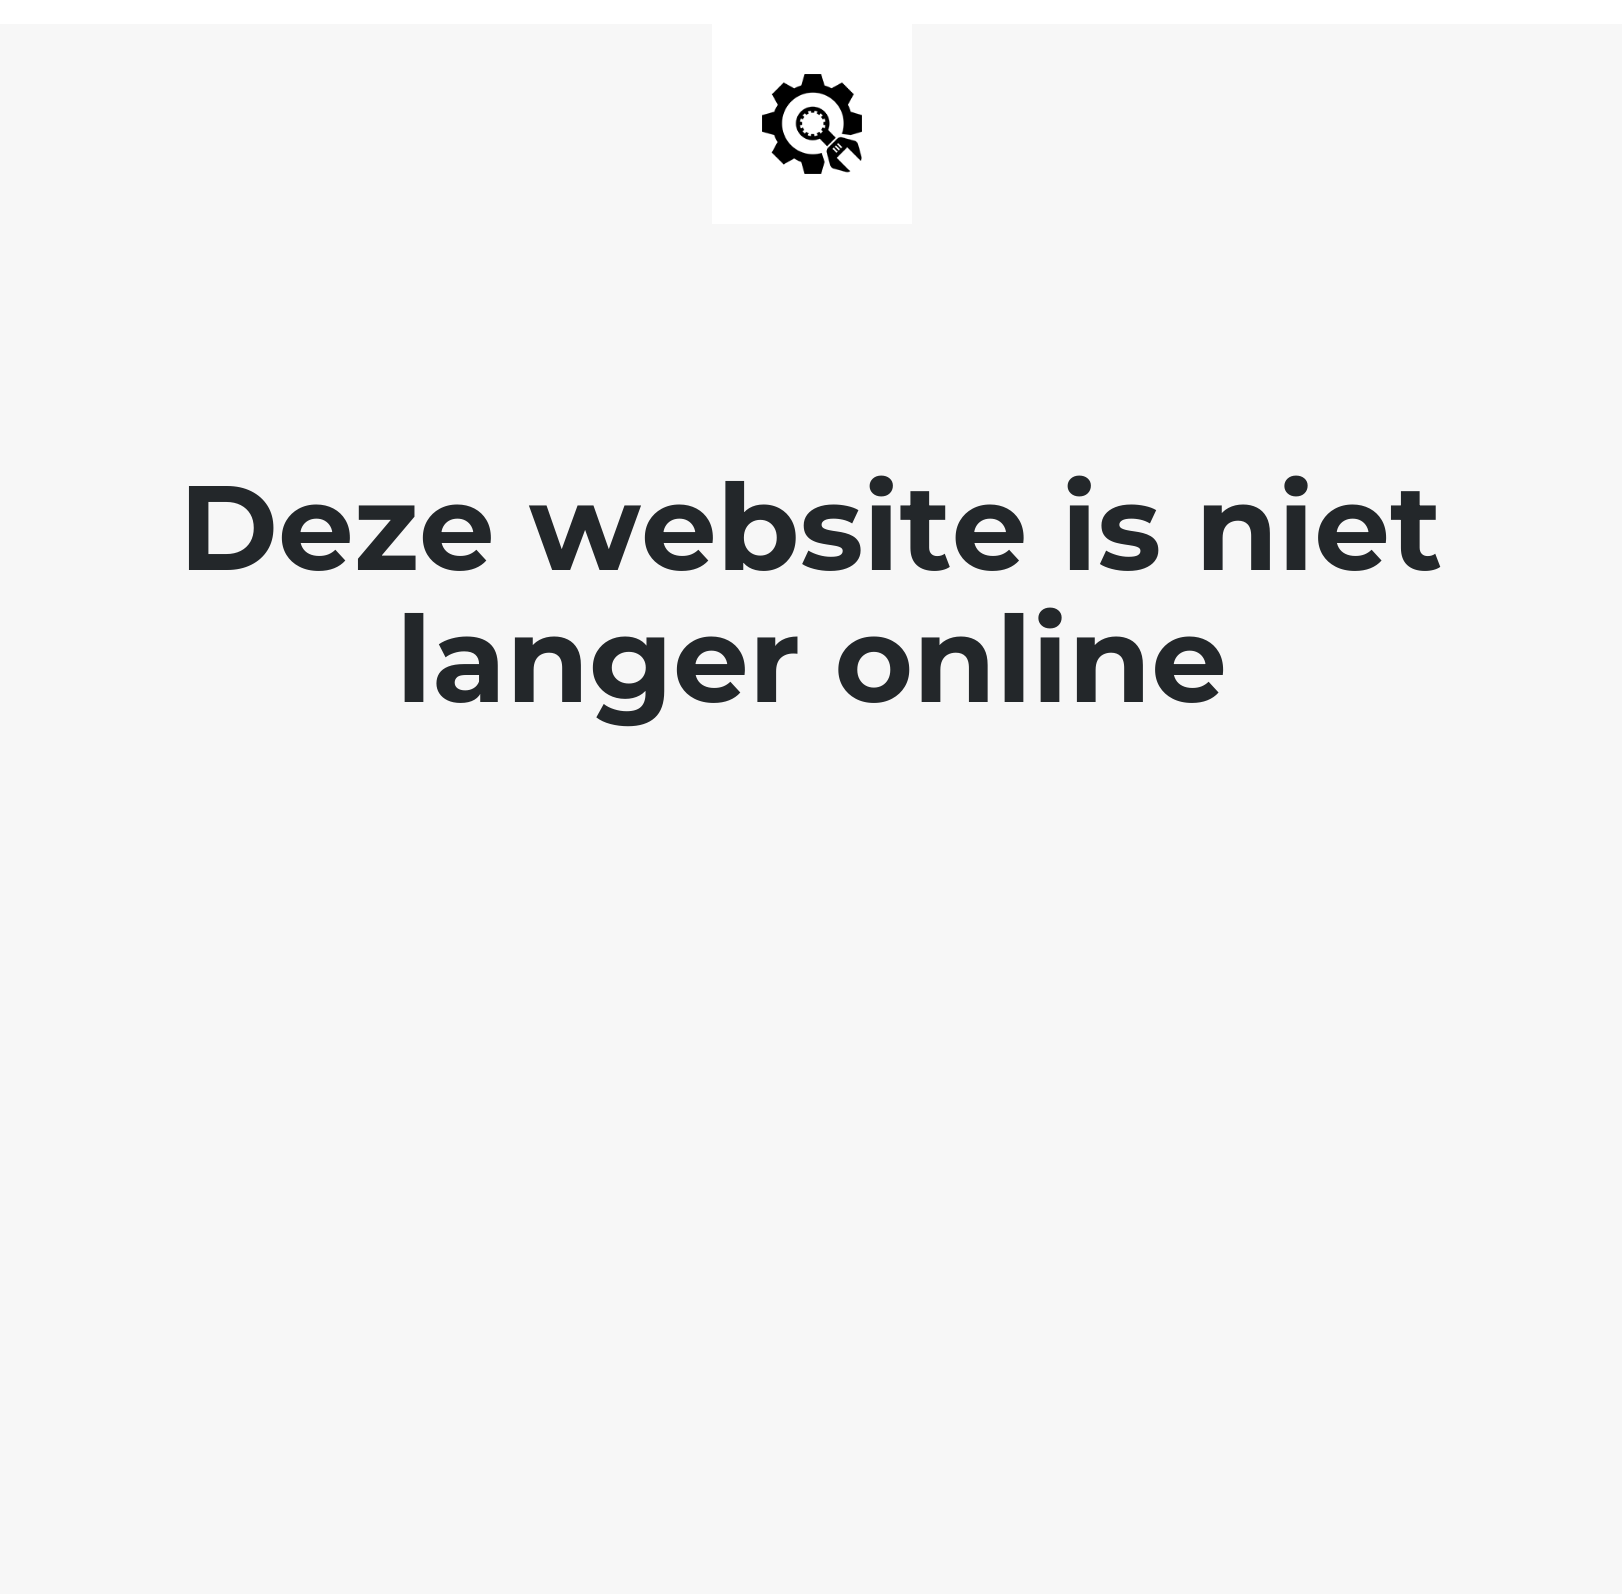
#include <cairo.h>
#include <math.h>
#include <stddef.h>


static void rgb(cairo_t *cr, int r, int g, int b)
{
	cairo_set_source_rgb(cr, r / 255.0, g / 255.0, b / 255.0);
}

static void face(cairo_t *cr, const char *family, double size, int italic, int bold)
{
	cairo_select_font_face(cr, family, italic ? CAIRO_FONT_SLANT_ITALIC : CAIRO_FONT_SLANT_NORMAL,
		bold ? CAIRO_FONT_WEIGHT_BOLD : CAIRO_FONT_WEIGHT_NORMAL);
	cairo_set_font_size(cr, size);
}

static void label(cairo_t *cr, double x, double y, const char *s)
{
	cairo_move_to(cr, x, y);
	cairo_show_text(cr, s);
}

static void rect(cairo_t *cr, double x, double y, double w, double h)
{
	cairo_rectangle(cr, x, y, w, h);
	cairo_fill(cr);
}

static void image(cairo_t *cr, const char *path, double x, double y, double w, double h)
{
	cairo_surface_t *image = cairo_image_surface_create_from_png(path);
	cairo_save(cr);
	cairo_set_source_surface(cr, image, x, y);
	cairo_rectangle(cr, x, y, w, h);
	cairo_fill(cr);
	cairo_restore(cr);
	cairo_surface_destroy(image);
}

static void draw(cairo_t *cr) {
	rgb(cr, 247, 247, 247);
	cairo_paint(cr);
	rgb(cr, 255, 255, 255);
	rect(cr, 0, 0, 1622, 24);
	rect(cr, 712, 24, 200, 200);
	image(cr, "image0.png", 762, 74, 100, 100);
	face(cr, "Montserrat Thin", 120, 0, 0);
	rgb(cr, 35, 39, 42);
	label(cr, 179, 570, "Deze website is niet");
	label(cr, 396, 702, "langer online");
}

int main(void) {
	cairo_surface_t *surface = cairo_image_surface_create(CAIRO_FORMAT_RGB24, 1622, 1594);
	cairo_t *cr = cairo_create(surface);
	cairo_font_options_t *options = cairo_font_options_create();
	cairo_font_options_set_hint_metrics(options, CAIRO_HINT_METRICS_OFF);
	cairo_font_options_set_hint_style(options, CAIRO_HINT_STYLE_NONE);
	cairo_set_font_options(cr, options);
	cairo_set_miter_limit(cr, 4);
	draw(cr);
	cairo_surface_write_to_png(surface, "render.png");
	cairo_font_options_destroy(options);
	cairo_destroy(cr);
	cairo_surface_destroy(surface);
	return 0;
}
